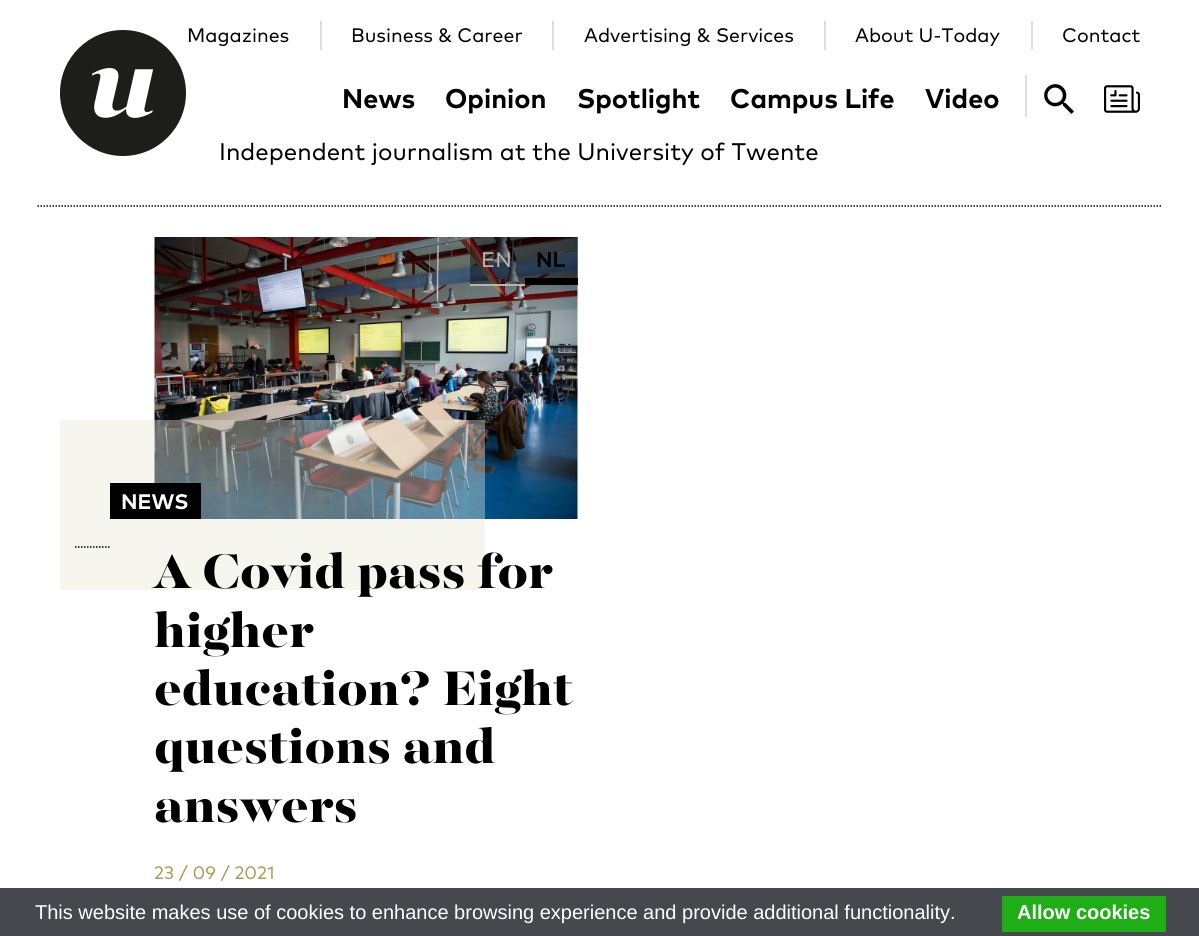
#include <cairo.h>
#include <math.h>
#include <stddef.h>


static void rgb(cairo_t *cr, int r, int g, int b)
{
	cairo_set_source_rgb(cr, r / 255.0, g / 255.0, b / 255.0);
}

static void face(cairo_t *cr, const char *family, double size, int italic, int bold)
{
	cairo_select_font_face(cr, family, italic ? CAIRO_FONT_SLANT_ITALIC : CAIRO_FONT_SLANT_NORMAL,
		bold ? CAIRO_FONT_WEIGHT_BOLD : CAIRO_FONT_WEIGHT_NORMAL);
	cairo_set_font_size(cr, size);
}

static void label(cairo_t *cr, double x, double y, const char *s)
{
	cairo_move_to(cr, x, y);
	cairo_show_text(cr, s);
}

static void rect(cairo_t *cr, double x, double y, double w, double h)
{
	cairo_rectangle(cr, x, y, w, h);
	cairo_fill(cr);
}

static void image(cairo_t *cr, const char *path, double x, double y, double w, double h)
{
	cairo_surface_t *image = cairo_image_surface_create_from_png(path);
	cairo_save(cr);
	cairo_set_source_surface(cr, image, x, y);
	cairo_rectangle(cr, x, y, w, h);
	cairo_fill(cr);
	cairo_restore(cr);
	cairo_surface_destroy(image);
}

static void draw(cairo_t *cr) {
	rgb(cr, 255, 255, 255);
	cairo_paint(cr);
	cairo_new_path(cr);
	cairo_move_to(cr, 37.5, 206);
	cairo_line_to(cr, 1162.5, 206);
	rgb(cr, 0, 0, 0);
	cairo_set_line_width(cr, 1.5);
	cairo_set_dash(cr, (double[]){1.5, 1.5}, 2, 0);
	cairo_stroke(cr);
	image(cr, "image0.png", 60, 30, 126, 126);
	face(cr, "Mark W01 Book", 19.5, 0, 0);
	label(cr, 187, 42, "Magazines");
	rgb(cr, 221, 221, 221);
	rect(cr, 320, 21, 2, 29);
	rgb(cr, 0, 0, 0);
	label(cr, 351, 42, "Business & Career");
	rgb(cr, 221, 221, 221);
	rect(cr, 552, 21, 2, 29);
	rgb(cr, 0, 0, 0);
	label(cr, 584, 42, "Advertising & Services");
	rgb(cr, 221, 221, 221);
	rect(cr, 824, 21, 2, 29);
	rgb(cr, 0, 0, 0);
	label(cr, 855, 42, "About U-Today");
	rgb(cr, 221, 221, 221);
	rect(cr, 1031, 21, 2, 29);
	rgb(cr, 0, 0, 0);
	label(cr, 1062, 42, "Contact");
	face(cr, "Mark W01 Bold", 27, 0, 1);
	label(cr, 342, 108, "News");
	label(cr, 445, 108, "Opinion");
	label(cr, 577, 108, "Spotlight");
	label(cr, 730, 108, "Campus Life");
	label(cr, 925, 108, "Video");
	rgb(cr, 221, 221, 221);
	rect(cr, 1025, 75, 2, 42);
	image(cr, "image1.png", 1044, 84, 30, 30);
	image(cr, "image2.png", 1104, 85, 36, 28);
	face(cr, "Mark W01 Book", 24, 0, 0);
	rgb(cr, 0, 0, 0);
	label(cr, 219, 160, "Independent journalism at the University of Twente");
	image(cr, "image3.png", 154, 237, 424, 282);
	cairo_set_source_rgba(cr, 0, 0, 0, 0.4);
	rect(cr, 470, 237, 108, 47);
	rgb(cr, 181, 181, 181);
	rect(cr, 470, 284, 55, 2);
	face(cr, "Mark W01 Book", 21, 0, 0);
	label(cr, 481, 267, "EN");
	rgb(cr, 0, 0, 0);
	rect(cr, 525, 278, 53, 7);
	face(cr, "Mark W01 Bold", 21, 0, 1);
	label(cr, 536, 267, "NL");
	cairo_set_source_rgba(cr, 0.91, 0.902, 0.835, 0.4);
	rect(cr, 60, 420, 425, 170);
	rgb(cr, 0, 0, 0);
	rect(cr, 110, 483, 91, 36);
	rgb(cr, 255, 255, 255);
	label(cr, 121, 509, "NEWS");
	cairo_new_path(cr);
	cairo_move_to(cr, 75, 547);
	cairo_line_to(cr, 109.5, 547);
	rgb(cr, 0, 0, 0);
	cairo_stroke(cr);
	face(cr, "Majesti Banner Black", 54, 0, 0);
	label(cr, 154, 588, "A Covid pass for");
	label(cr, 154, 647, "higher");
	label(cr, 154, 705, "education? Eight");
	label(cr, 154, 763, "questions and");
	label(cr, 154, 822, "answers");
	face(cr, "Mark W01 Book", 18, 0, 0);
	rgb(cr, 166, 161, 88);
	label(cr, 154, 879, "23 / 09 / 2021");
	rgb(cr, 69, 72, 77);
	rect(cr, 0, 888, 1199, 48);
	face(cr, "Liberation Sans", 20, 0, 0);
	rgb(cr, 255, 255, 255);
	label(cr, 35, 919, "This website makes use of cookies to enhance browsing experience and provide additional functionality.");
	rgb(cr, 31, 174, 22);
	rect(cr, 1002, 896, 164, 36);
	face(cr, "Liberation Sans", 20, 0, 1);
	rgb(cr, 255, 255, 255);
	label(cr, 1017, 919, "Allow cookies");
}

int main(void) {
	cairo_surface_t *surface = cairo_image_surface_create(CAIRO_FORMAT_RGB24, 1199, 936);
	cairo_t *cr = cairo_create(surface);
	cairo_font_options_t *options = cairo_font_options_create();
	cairo_font_options_set_hint_metrics(options, CAIRO_HINT_METRICS_OFF);
	cairo_font_options_set_hint_style(options, CAIRO_HINT_STYLE_NONE);
	cairo_set_font_options(cr, options);
	cairo_set_miter_limit(cr, 4);
	draw(cr);
	cairo_surface_write_to_png(surface, "render.png");
	cairo_font_options_destroy(options);
	cairo_destroy(cr);
	cairo_surface_destroy(surface);
	return 0;
}
